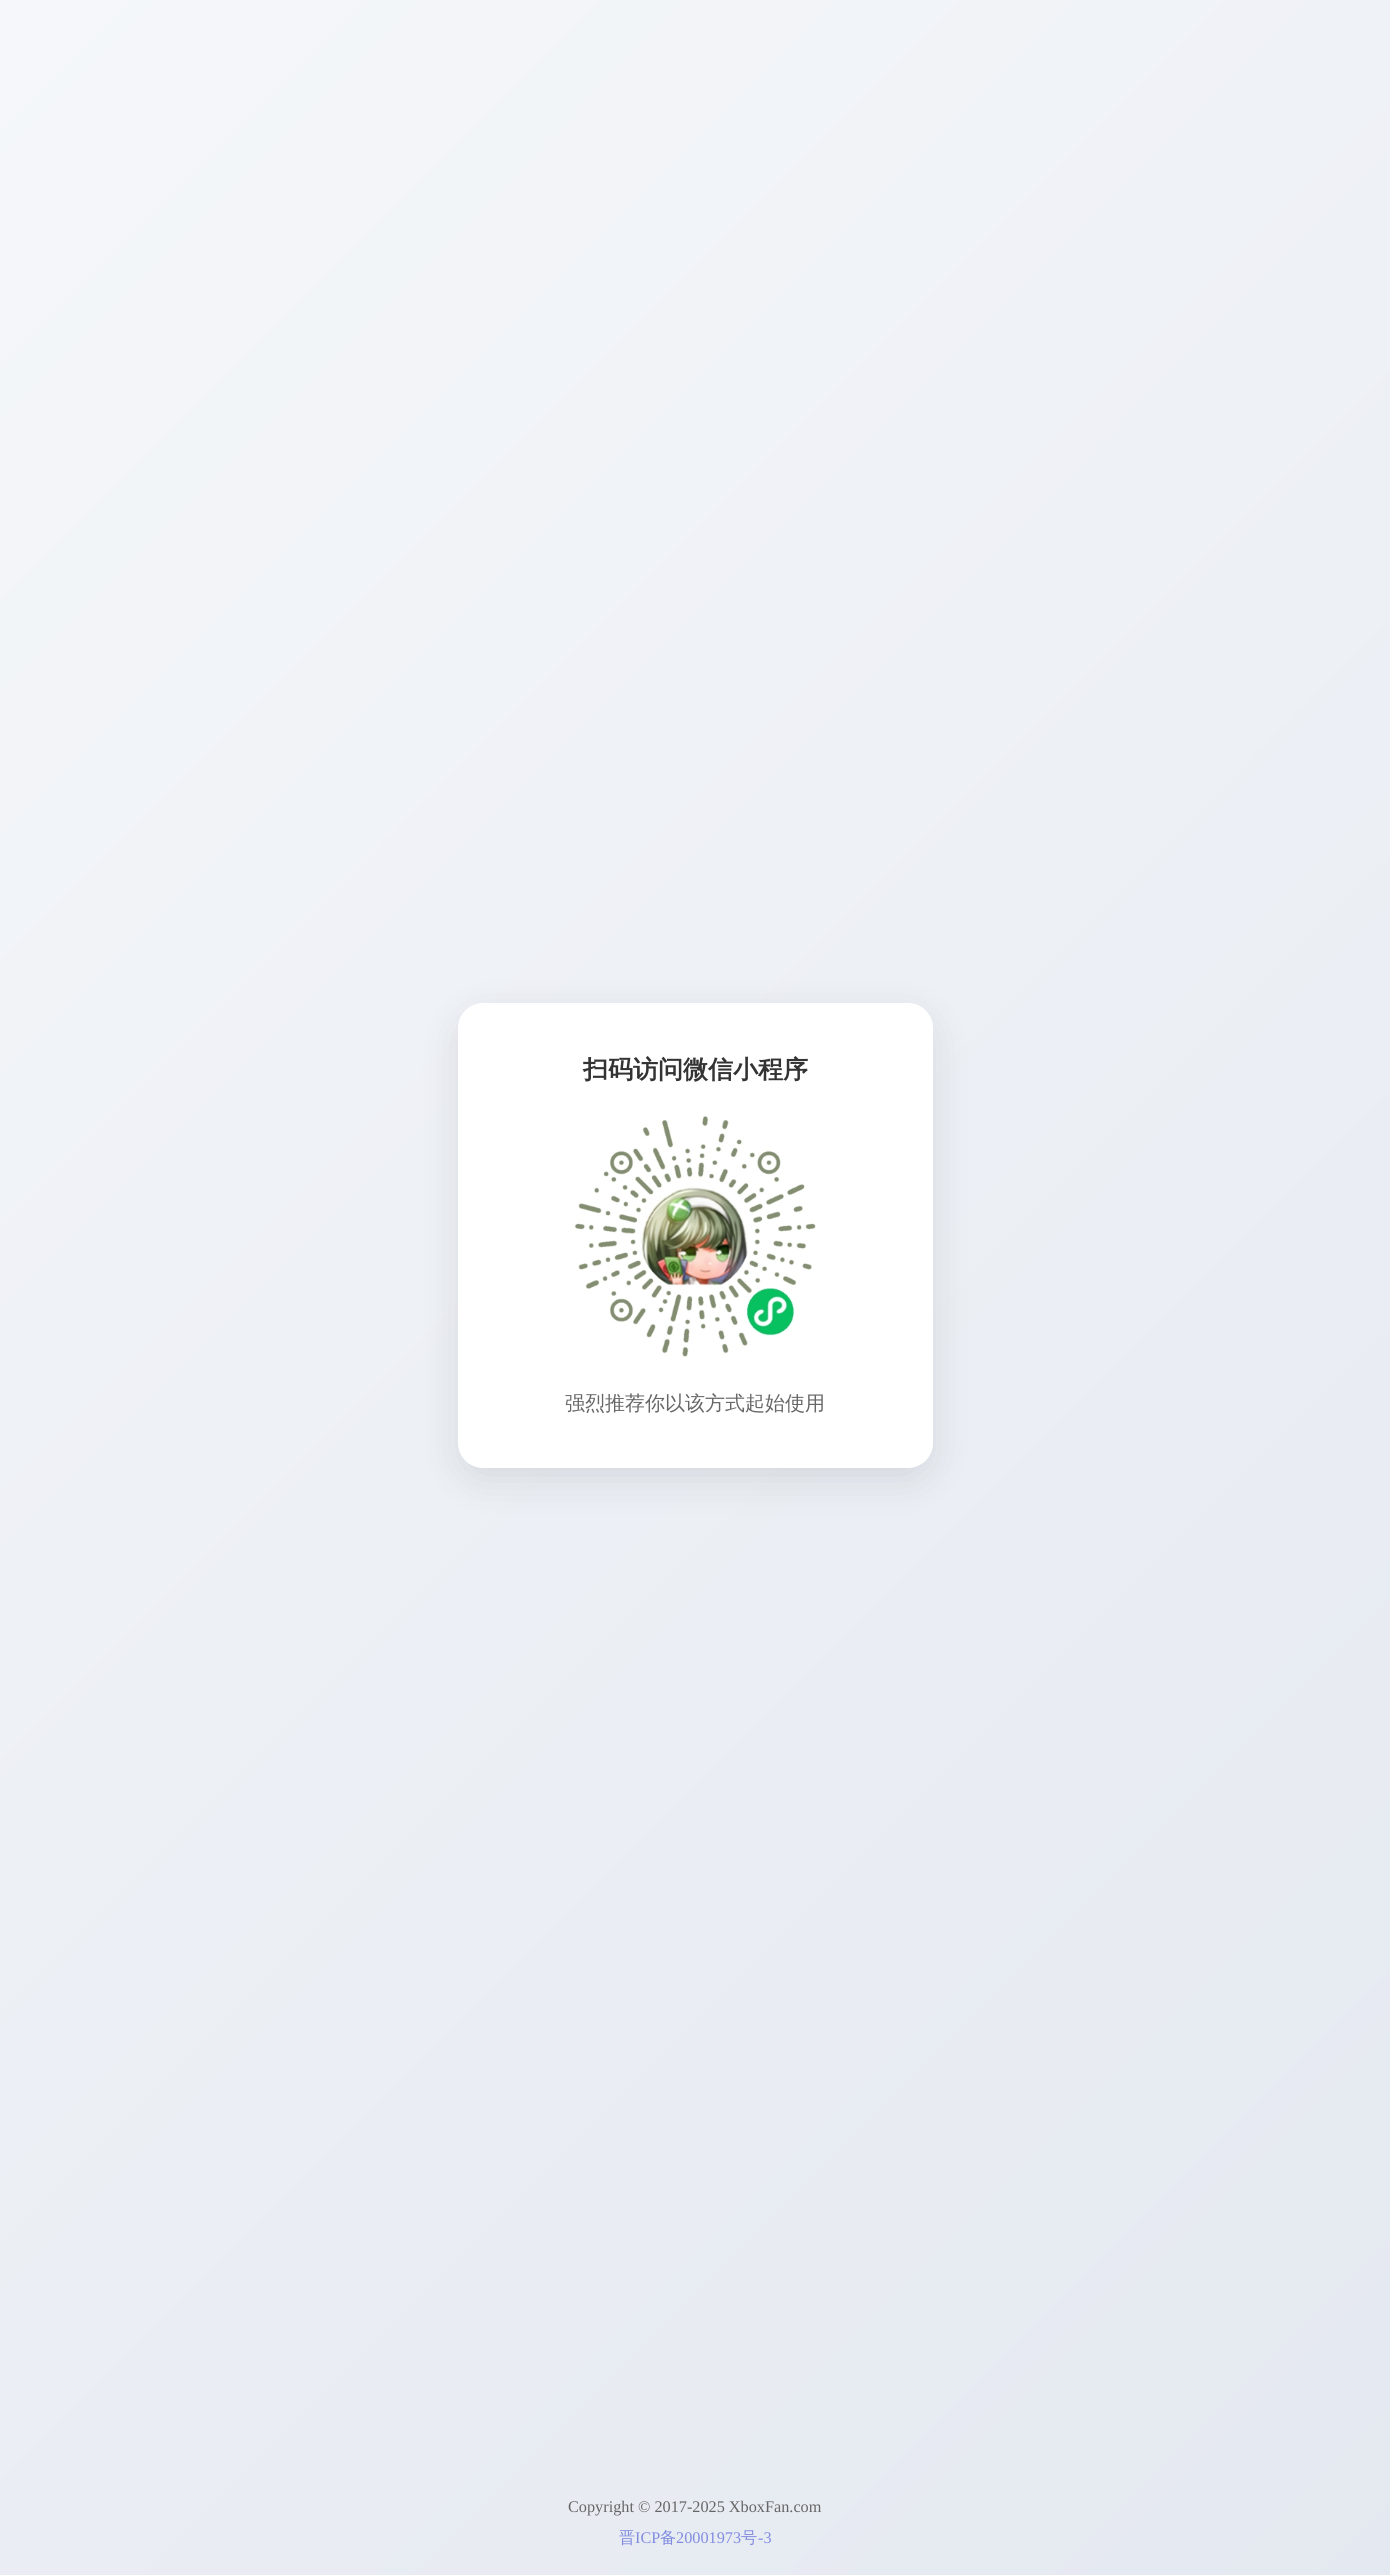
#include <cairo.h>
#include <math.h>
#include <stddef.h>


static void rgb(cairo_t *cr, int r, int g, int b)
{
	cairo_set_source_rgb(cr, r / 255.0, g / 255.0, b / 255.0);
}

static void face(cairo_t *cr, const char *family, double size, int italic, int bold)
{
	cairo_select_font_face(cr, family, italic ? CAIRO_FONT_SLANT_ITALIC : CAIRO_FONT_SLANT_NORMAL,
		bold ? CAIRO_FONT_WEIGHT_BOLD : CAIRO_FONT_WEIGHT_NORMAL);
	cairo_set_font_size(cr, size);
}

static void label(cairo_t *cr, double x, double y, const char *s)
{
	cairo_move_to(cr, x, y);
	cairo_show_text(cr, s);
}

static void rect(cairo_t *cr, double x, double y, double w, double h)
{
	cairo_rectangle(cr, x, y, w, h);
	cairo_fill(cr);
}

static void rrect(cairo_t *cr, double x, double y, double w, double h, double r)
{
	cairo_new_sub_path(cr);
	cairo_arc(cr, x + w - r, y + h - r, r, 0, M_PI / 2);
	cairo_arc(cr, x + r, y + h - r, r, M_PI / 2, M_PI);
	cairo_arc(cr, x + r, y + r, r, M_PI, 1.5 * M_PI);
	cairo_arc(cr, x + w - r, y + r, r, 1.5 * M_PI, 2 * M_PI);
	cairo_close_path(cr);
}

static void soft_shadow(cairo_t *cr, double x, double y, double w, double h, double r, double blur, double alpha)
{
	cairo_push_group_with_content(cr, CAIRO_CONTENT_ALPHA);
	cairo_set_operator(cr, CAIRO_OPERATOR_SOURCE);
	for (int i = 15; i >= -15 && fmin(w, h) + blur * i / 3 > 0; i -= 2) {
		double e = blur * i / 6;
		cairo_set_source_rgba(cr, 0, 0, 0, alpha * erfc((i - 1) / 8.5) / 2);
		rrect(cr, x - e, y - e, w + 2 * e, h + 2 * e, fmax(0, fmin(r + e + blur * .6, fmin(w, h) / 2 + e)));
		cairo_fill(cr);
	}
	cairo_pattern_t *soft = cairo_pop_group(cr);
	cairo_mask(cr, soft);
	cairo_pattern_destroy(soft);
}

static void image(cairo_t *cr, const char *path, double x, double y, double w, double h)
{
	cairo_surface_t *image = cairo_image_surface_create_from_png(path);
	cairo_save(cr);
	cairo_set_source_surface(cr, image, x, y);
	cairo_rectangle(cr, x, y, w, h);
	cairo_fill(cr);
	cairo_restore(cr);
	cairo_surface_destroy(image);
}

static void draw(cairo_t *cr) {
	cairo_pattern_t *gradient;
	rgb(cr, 255, 255, 255);
	cairo_paint(cr);
	gradient = cairo_pattern_create_linear(-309, 309, 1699, 2316);
	cairo_pattern_add_color_stop_rgba(gradient, 0, 0.961, 0.969, 0.98, 1);
	cairo_pattern_add_color_stop_rgba(gradient, 1, 0.894, 0.91, 0.941, 1);
	cairo_set_source(cr, gradient);
	cairo_pattern_destroy(gradient);
	rect(cr, 0, 0, 1390, 2575);
	rgb(cr, 0, 0, 0);
	soft_shadow(cr, 458, 1015, 475, 465, 25, 19, 0.1);
	rgb(cr, 255, 255, 255);
	rrect(cr, 458, 1003, 475, 465, 25);
	cairo_fill(cr);
	face(cr, "WenQuanYi Zen Hei", 25, 0, 1);
	rgb(cr, 51, 51, 51);
	label(cr, 583, 1078, "扫码访问微信小程序");
	image(cr, "image0.png", 574, 1115, 242, 242);
	face(cr, "WenQuanYi Zen Hei Medium", 20, 0, 0);
	rgb(cr, 102, 102, 102);
	label(cr, 565, 1410, "强烈推荐你以该方式起始使用");
	face(cr, "Liberation Serif", 16.25, 0, 0);
	label(cr, 568, 2512, "Copyright © 2017-2025 XboxFan.com");
	face(cr, "WenQuanYi Zen Hei Medium", 16.25, 0, 0);
	rgb(cr, 129, 140, 225);
	label(cr, 619, 2543, "晋");
	face(cr, "Liberation Serif", 16.25, 0, 0);
	label(cr, 635, 2543, "ICP");
	face(cr, "WenQuanYi Zen Hei Medium", 16.25, 0, 0);
	label(cr, 660, 2543, "备");
	face(cr, "Liberation Serif", 16.25, 0, 0);
	label(cr, 676, 2543, "20001973");
	face(cr, "WenQuanYi Zen Hei Medium", 16.25, 0, 0);
	label(cr, 741, 2543, "号");
	face(cr, "Liberation Serif", 16.25, 0, 0);
	label(cr, 758, 2543, "-3");
}

int main(void) {
	cairo_surface_t *surface = cairo_image_surface_create(CAIRO_FORMAT_RGB24, 1390, 2575);
	cairo_t *cr = cairo_create(surface);
	cairo_font_options_t *options = cairo_font_options_create();
	cairo_font_options_set_hint_metrics(options, CAIRO_HINT_METRICS_OFF);
	cairo_font_options_set_hint_style(options, CAIRO_HINT_STYLE_NONE);
	cairo_set_font_options(cr, options);
	cairo_set_miter_limit(cr, 4);
	draw(cr);
	cairo_surface_write_to_png(surface, "render.png");
	cairo_font_options_destroy(options);
	cairo_destroy(cr);
	cairo_surface_destroy(surface);
	return 0;
}
